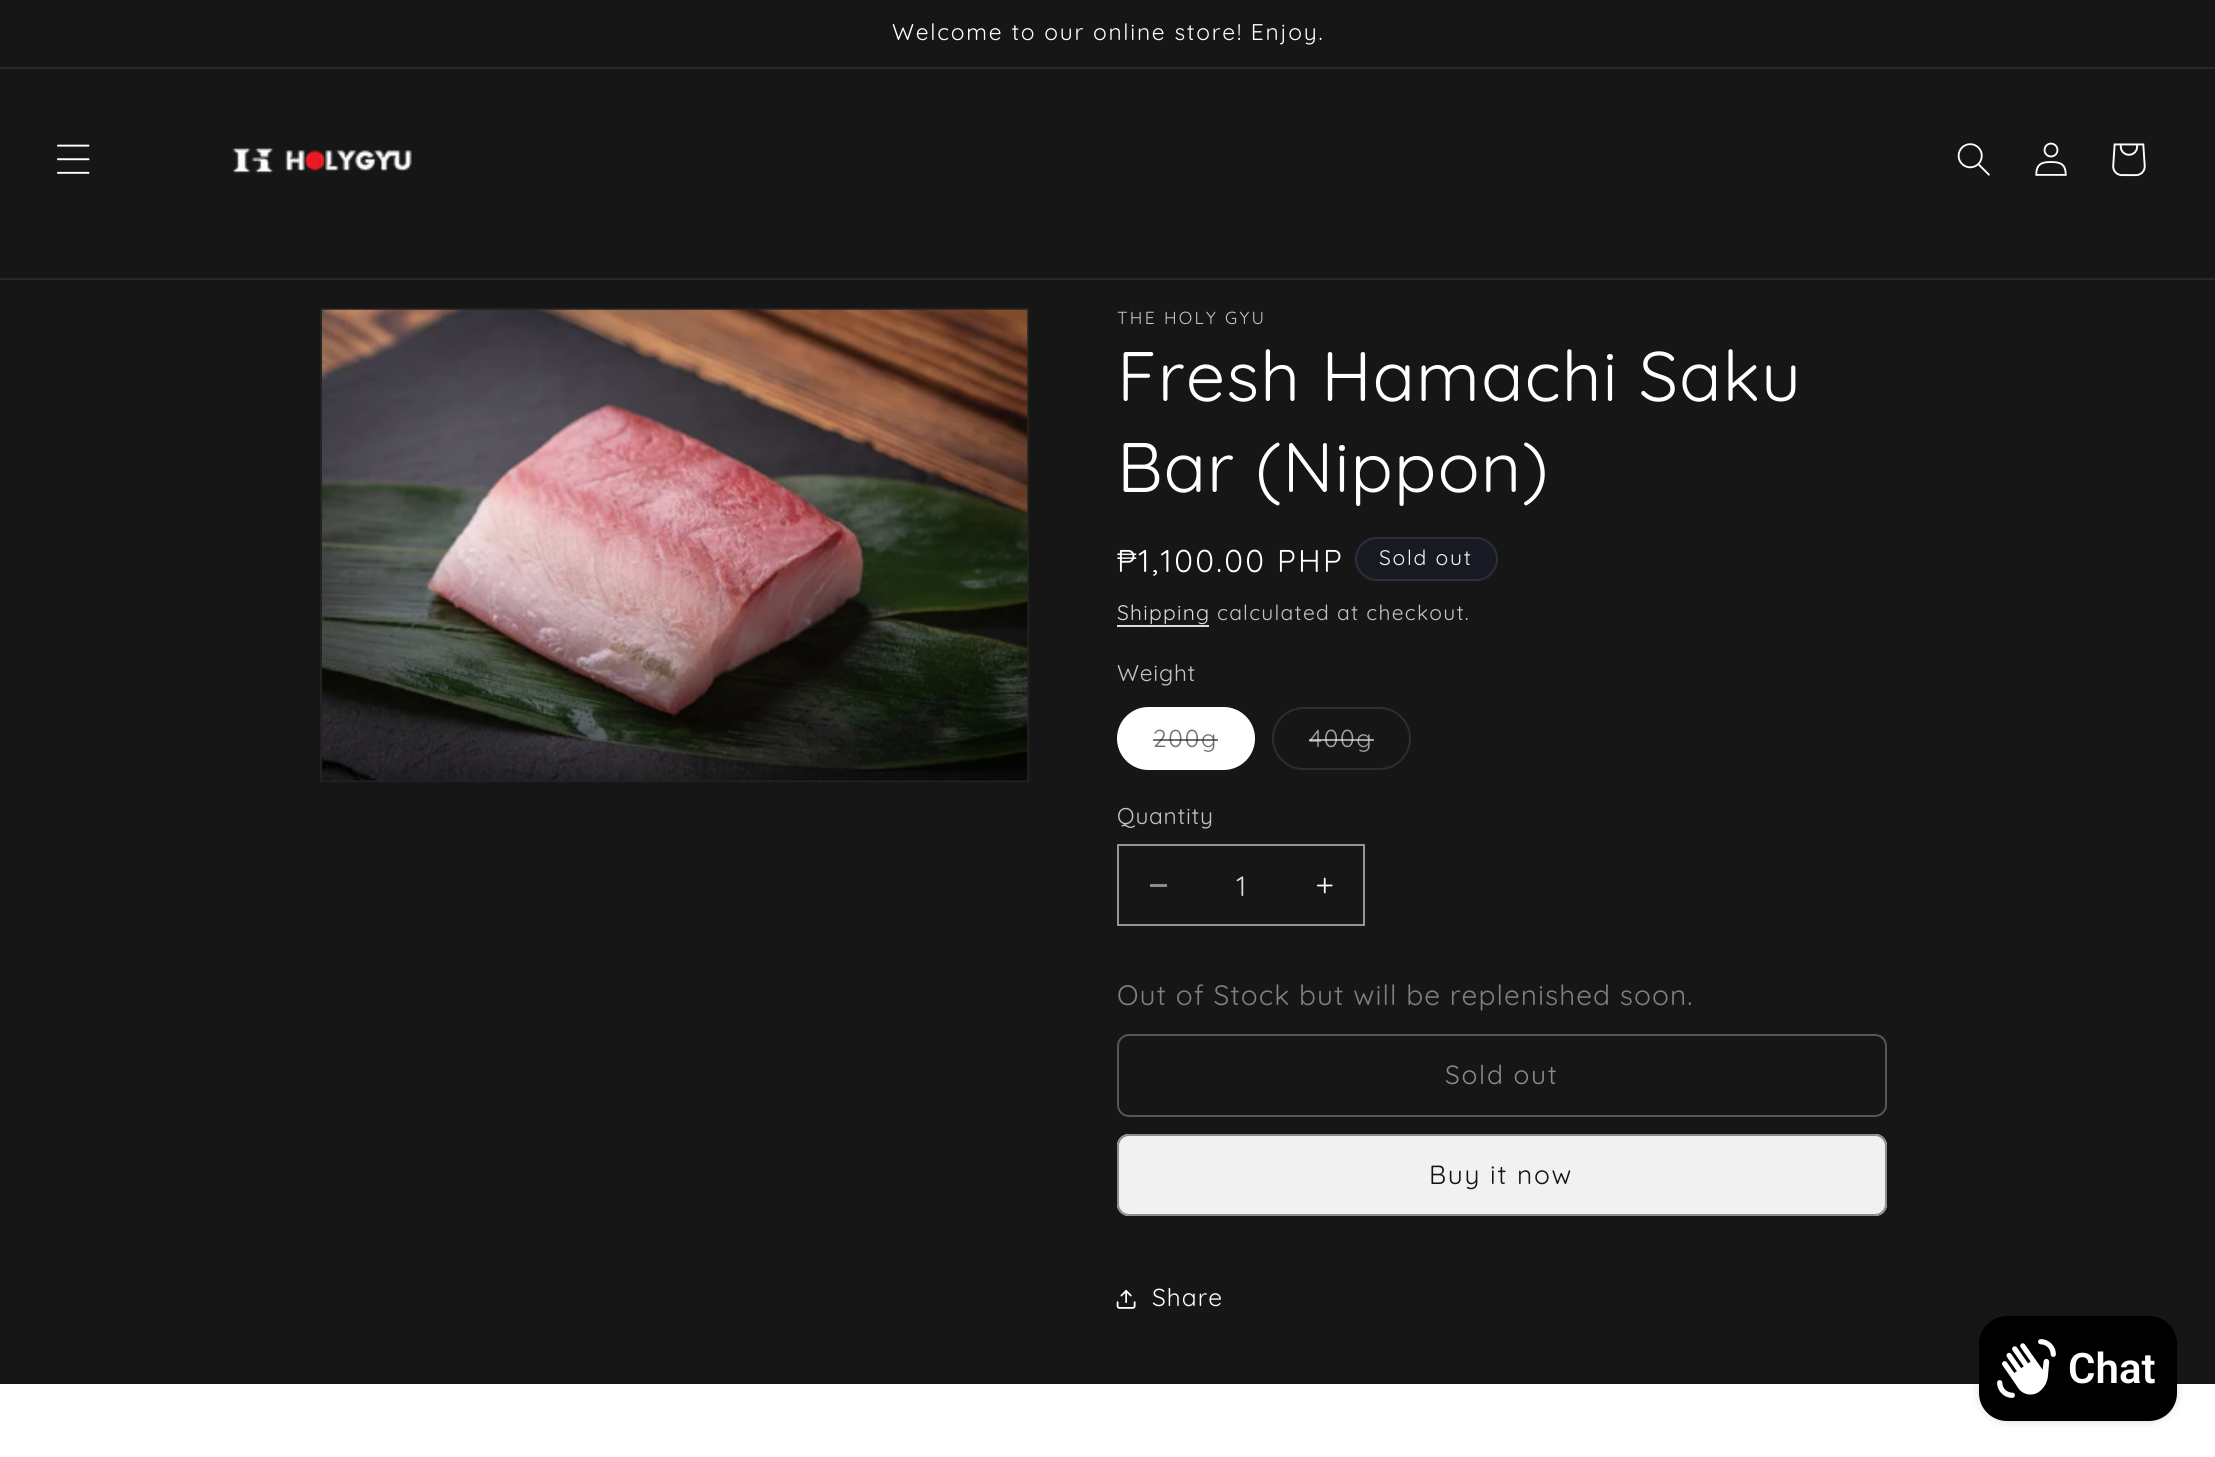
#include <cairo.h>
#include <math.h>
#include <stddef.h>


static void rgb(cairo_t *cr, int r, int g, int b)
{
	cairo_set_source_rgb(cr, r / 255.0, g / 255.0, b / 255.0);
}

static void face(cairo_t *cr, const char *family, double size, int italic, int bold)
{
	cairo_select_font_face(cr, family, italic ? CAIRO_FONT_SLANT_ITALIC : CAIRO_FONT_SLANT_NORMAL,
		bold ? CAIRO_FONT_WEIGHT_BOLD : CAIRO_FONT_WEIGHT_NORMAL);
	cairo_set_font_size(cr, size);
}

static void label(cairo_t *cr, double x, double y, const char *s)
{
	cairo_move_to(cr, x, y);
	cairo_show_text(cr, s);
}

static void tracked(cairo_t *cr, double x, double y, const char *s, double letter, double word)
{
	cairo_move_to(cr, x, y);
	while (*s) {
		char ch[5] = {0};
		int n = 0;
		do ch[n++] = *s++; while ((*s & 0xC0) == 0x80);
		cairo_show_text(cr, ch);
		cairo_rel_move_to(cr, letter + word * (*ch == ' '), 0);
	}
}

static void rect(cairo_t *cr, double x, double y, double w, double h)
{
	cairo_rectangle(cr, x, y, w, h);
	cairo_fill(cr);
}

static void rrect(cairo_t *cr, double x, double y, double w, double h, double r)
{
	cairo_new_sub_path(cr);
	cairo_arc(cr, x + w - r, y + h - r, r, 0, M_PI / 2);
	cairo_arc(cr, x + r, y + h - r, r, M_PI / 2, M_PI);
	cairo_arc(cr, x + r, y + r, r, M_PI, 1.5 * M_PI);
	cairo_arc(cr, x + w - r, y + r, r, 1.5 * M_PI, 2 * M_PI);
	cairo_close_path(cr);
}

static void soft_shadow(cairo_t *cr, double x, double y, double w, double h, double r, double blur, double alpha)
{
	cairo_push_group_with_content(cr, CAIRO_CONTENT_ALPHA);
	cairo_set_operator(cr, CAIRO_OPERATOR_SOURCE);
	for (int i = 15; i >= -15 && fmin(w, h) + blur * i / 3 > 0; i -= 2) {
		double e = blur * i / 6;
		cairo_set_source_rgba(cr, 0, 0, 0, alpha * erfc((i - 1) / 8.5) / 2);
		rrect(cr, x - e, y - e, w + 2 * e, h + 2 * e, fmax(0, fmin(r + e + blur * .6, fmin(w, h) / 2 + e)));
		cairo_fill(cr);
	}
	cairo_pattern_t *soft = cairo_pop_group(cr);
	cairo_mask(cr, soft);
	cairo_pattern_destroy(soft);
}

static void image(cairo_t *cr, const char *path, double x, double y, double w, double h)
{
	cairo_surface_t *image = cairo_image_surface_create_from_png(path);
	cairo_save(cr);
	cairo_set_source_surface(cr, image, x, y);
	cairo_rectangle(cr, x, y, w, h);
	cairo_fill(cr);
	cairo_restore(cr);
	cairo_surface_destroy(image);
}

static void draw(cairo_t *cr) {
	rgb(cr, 255, 255, 255);
	cairo_paint(cr);
	rgb(cr, 22, 22, 22);
	rect(cr, 0, 0, 2215, 67);
	rgb(cr, 41, 41, 41);
	rect(cr, 0, 67, 2215, 2);
	face(cr, "Quicksand", 22.75, 0, 0);
	rgb(cr, 255, 255, 255);
	tracked(cr, 892, 40, "Welcome to our online store! Enjoy.", 1.75, 0);
	rgb(cr, 22, 22, 22);
	rect(cr, 0, 69, 2215, 209);
	rgb(cr, 41, 41, 41);
	rect(cr, 0, 278, 2215, 2);
	image(cr, "image0.png", 57, 144, 33, 30);
	image(cr, "image1.png", 232, 148, 180, 26);
	image(cr, "image2.png", 1957, 143, 33, 33);
	image(cr, "image3.png", 2035, 142, 32, 34);
	image(cr, "image4.png", 2112, 143, 34, 34);
	rgb(cr, 22, 22, 22);
	rect(cr, 0, 280, 2215, 1104);
	cairo_rectangle(cr, 321, 309, 707, 472);
	rgb(cr, 34, 34, 34);
	cairo_stroke(cr);
	image(cr, "image5.png", 322, 309, 706, 472);
	face(cr, "Quicksand", 17.5, 0, 0);
	rgb(cr, 197, 197, 197);
	tracked(cr, 1117, 324, "THE HOLY GYU", 2.25, 0);
	face(cr, "Quicksand", 70, 0, 0);
	rgb(cr, 255, 255, 255);
	tracked(cr, 1117, 401, "Fresh Hamachi Saku", 1.05, 0);
	tracked(cr, 1117, 492, "Bar (Nippon)", 1.05, 0);
	face(cr, "Quicksand", 31.5, 0, 0);
	tracked(cr, 1117, 572, "₱1,100.00 PHP", 2.25, 0);
	rgb(cr, 23, 26, 35);
	rrect(cr, 1355, 537, 143, 44, 22);
	cairo_fill(cr);
	rrect(cr, 1356, 538, 141, 42, 21);
	cairo_set_source_rgba(cr, 0.949, 0.949, 0.949, 0.1);
	cairo_stroke(cr);
	face(cr, "Quicksand", 21, 0, 0);
	rgb(cr, 242, 242, 242);
	tracked(cr, 1379, 565, "Sold out", 1.75, 0);
	rgb(cr, 220, 220, 220);
	tracked(cr, 1117, 620, "Shipping", 1.25, 0);
	rect(cr, 1117, 625, 92, 2);
	rgb(cr, 197, 197, 197);
	tracked(cr, 1217, 620, "calculated at checkout.", 1.25, 0);
	face(cr, "Quicksand", 22.75, 0, 0);
	tracked(cr, 1117, 681, "Weight", 0.75, 0);
	rgb(cr, 255, 255, 255);
	rrect(cr, 1117, 707, 138, 63, 31.5);
	cairo_fill(cr);
	rrect(cr, 1118, 708, 136, 61, 30.5);
	cairo_set_source_rgba(cr, 1, 1, 1, 0.1);
	cairo_stroke(cr);
	face(cr, "Quicksand", 24.5, 0, 0);
	rgb(cr, 115, 115, 115);
	tracked(cr, 1153, 747, "200g", 1.75, 0);
	cairo_set_source_rgba(cr, 0.086, 0.086, 0.086, 0.6);
	rect(cr, 1153, 739, 65, 2);
	rrect(cr, 1273, 708, 137, 61, 30.5);
	rgb(cr, 45, 45, 45);
	cairo_stroke(cr);
	rgb(cr, 162, 162, 162);
	tracked(cr, 1309, 747, "400g", 1.75, 0);
	cairo_set_source_rgba(cr, 1, 1, 1, 0.6);
	rect(cr, 1309, 739, 65, 2);
	face(cr, "Quicksand", 22.75, 0, 0);
	rgb(cr, 197, 197, 197);
	tracked(cr, 1117, 824, "Quantity", 0.75, 0);
	rgb(cr, 139, 139, 139);
	rect(cr, 1150, 884, 17, 3);
	image(cr, "image6.png", 1316, 877, 17, 17);
	cairo_rectangle(cr, 1118, 845, 246, 80);
	rgb(cr, 150, 150, 150);
	cairo_stroke(cr);
	face(cr, "Quicksand", 28, 0, 0);
	rgb(cr, 220, 220, 220);
	label(cr, 1236, 896, "1");
	rgb(cr, 128, 128, 128);
	tracked(cr, 1117, 1005, "Out of Stock but will be replenished soon.", 1.05, 0);
	rrect(cr, 1118, 1035, 768, 81, 11);
	rgb(cr, 86, 86, 86);
	cairo_stroke(cr);
	face(cr, "Quicksand", 26.25, 0, 0);
	rgb(cr, 139, 139, 139);
	tracked(cr, 1445, 1084, "Sold out", 1.75, 0);
	rgb(cr, 241, 241, 241);
	rrect(cr, 1117, 1134, 770, 82, 12);
	cairo_fill(cr);
	rrect(cr, 1118, 1135, 768, 80, 11);
	cairo_stroke(cr);
	rrect(cr, 1118, 1135, 768, 80, 11);
	cairo_set_source_rgba(cr, 0.071, 0.071, 0.071, 0.45);
	cairo_stroke(cr);
	rgb(cr, 18, 18, 18);
	tracked(cr, 1429, 1184, "Buy it now", 1.75, 0);
	image(cr, "image7.png", 1116, 1290, 20, 19);
	face(cr, "Quicksand", 24.5, 0, 0);
	rgb(cr, 255, 255, 255);
	tracked(cr, 1152, 1306, "Share", 1.05, 0);
	rgb(cr, 0, 0, 0);
	soft_shadow(cr, 1979, 1316, 198, 105, 28, 4.5, 0.15);
	rgb(cr, 0, 0, 0);
	rrect(cr, 1979, 1316, 198, 105, 28);
	cairo_fill(cr);
	image(cr, "image8.png", 1997, 1339, 59, 59);
	face(cr, "Roboto SemiBold", 42, 0, 0);
	rgb(cr, 255, 255, 255);
	label(cr, 2068, 1383, "Chat");
}

int main(void) {
	cairo_surface_t *surface = cairo_image_surface_create(CAIRO_FORMAT_RGB24, 2215, 1457);
	cairo_t *cr = cairo_create(surface);
	cairo_font_options_t *options = cairo_font_options_create();
	cairo_font_options_set_hint_metrics(options, CAIRO_HINT_METRICS_OFF);
	cairo_font_options_set_hint_style(options, CAIRO_HINT_STYLE_NONE);
	cairo_set_font_options(cr, options);
	cairo_set_miter_limit(cr, 4);
	draw(cr);
	cairo_surface_write_to_png(surface, "render.png");
	cairo_font_options_destroy(options);
	cairo_destroy(cr);
	cairo_surface_destroy(surface);
	return 0;
}
